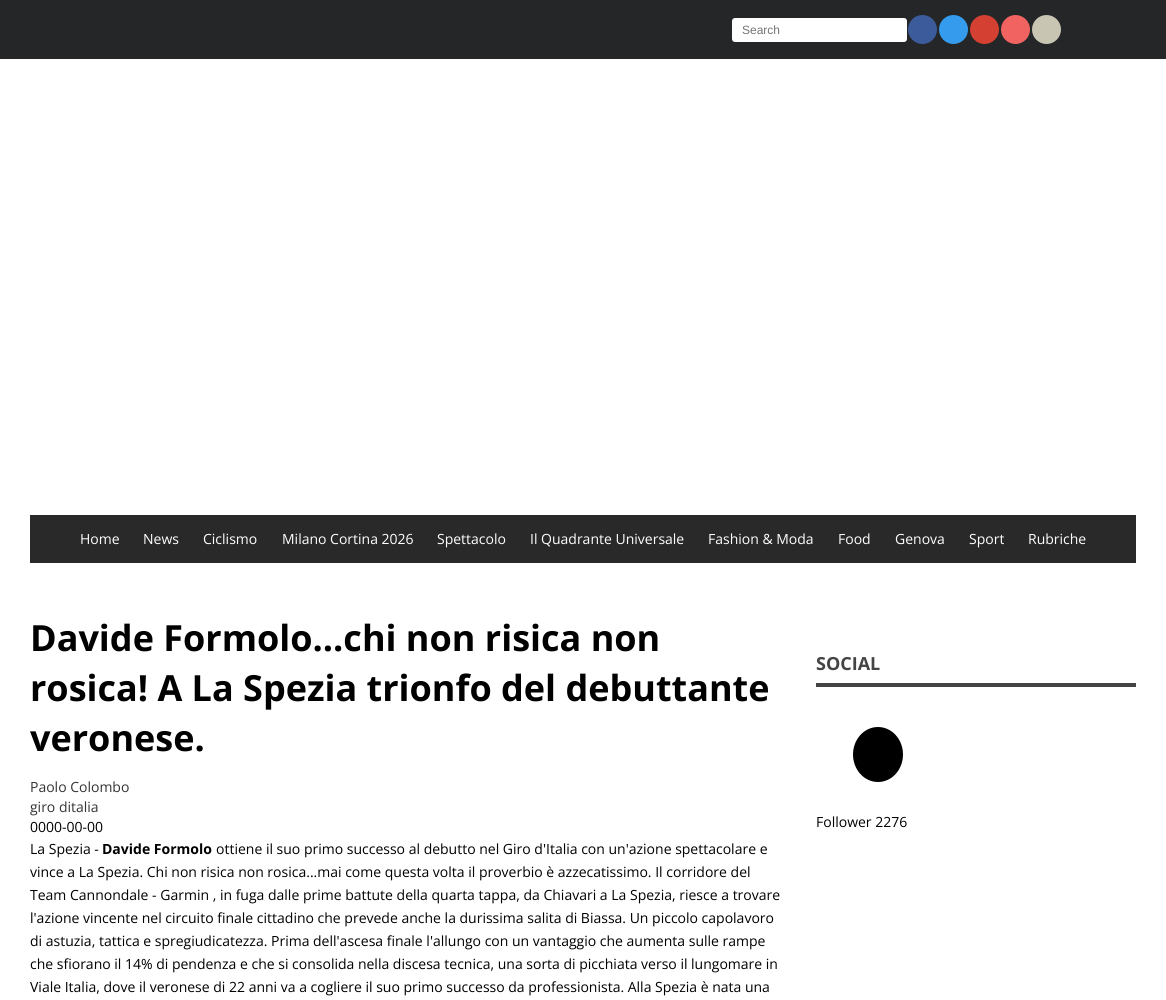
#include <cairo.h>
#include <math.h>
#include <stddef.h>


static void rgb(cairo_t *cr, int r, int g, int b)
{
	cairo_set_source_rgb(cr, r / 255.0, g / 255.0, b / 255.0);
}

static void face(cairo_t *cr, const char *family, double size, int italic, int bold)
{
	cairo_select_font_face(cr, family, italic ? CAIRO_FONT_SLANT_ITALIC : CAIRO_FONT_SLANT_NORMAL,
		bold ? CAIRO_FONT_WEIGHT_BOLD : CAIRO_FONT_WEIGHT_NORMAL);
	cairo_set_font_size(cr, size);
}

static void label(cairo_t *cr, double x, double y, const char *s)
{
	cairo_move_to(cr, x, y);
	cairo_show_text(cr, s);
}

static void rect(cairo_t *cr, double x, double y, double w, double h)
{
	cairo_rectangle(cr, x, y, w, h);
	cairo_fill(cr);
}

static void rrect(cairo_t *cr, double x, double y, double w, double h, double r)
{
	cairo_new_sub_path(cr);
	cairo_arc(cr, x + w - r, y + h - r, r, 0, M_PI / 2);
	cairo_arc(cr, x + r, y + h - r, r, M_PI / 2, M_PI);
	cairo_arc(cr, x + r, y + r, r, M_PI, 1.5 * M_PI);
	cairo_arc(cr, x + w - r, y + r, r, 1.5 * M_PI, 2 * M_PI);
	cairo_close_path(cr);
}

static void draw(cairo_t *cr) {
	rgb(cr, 255, 255, 255);
	cairo_paint(cr);
	rgb(cr, 36, 38, 40);
	rect(cr, 0, 0, 1166, 59);
	rgb(cr, 255, 255, 255);
	rrect(cr, 732, 18, 175, 24, 3);
	cairo_fill(cr);
	face(cr, "Liberation Sans", 12, 0, 0);
	rgb(cr, 117, 117, 117);
	label(cr, 742, 34, "Search");
	rgb(cr, 60, 91, 155);
	cairo_new_path(cr);
	cairo_arc(cr, 922.5, 29.5, 14.5, 0, 2 * M_PI);
	cairo_fill(cr);
	rgb(cr, 53, 155, 237);
	cairo_arc(cr, 953.5, 29.5, 14.5, 0, 2 * M_PI);
	cairo_fill(cr);
	rgb(cr, 212, 65, 50);
	cairo_arc(cr, 984.5, 29.5, 14.5, 0, 2 * M_PI);
	cairo_fill(cr);
	rgb(cr, 241, 99, 97);
	cairo_arc(cr, 1015.5, 29.5, 14.5, 0, 2 * M_PI);
	cairo_fill(cr);
	rgb(cr, 200, 197, 179);
	cairo_arc(cr, 1046.5, 29.5, 14.5, 0, 2 * M_PI);
	cairo_fill(cr);
	rgb(cr, 41, 41, 42);
	rect(cr, 30, 515, 1106, 48);
	face(cr, "Open Sans", 14, 0, 0);
	rgb(cr, 255, 255, 255);
	label(cr, 80, 544, "Home");
	label(cr, 143, 544, "News");
	label(cr, 203, 544, "Ciclismo");
	label(cr, 282, 544, "Milano Cortina 2026");
	label(cr, 437, 544, "Spettacolo");
	label(cr, 530, 544, "Il Quadrante Universale");
	label(cr, 708, 544, "Fashion & Moda");
	label(cr, 838, 544, "Food");
	label(cr, 895, 544, "Genova");
	label(cr, 969, 544, "Sport");
	label(cr, 1028, 544, "Rubriche");
	face(cr, "Open Sans", 36, 0, 1);
	rgb(cr, 0, 0, 0);
	label(cr, 30, 651, "Davide Formolo...chi non risica non");
	label(cr, 30, 701, "rosica! A La Spezia trionfo del debuttante");
	label(cr, 30, 751, "veronese.");
	face(cr, "Open Sans", 14, 0, 0);
	rgb(cr, 52, 52, 52);
	label(cr, 30, 792, "Paolo Colombo");
	label(cr, 30, 812, "giro ditalia");
	rgb(cr, 0, 0, 0);
	label(cr, 30, 832, "0000-00-00");
	label(cr, 30, 854, "La Spezia -");
	face(cr, "Open Sans", 14, 0, 1);
	label(cr, 102, 854, "Davide Formolo");
	face(cr, "Open Sans", 14, 0, 0);
	label(cr, 216, 854, "ottiene il suo primo successo al debutto nel Giro d'Italia con un'azione spettacolare e");
	label(cr, 30, 877, "vince a La Spezia. Chi non risica non rosica...mai come questa volta il proverbio è azzecatissimo. Il corridore del");
	label(cr, 30, 900, "Team Cannondale - Garmin , in fuga dalle prime battute della quarta tappa, da Chiavari a La Spezia, riesce a trovare");
	label(cr, 30, 923, "l'azione vincente nel circuito finale cittadino che prevede anche la durissima salita di Biassa. Un piccolo capolavoro");
	label(cr, 30, 946, "di astuzia, tattica e spregiudicatezza. Prima dell'ascesa finale l'allungo con un vantaggio che aumenta sulle rampe");
	label(cr, 30, 969, "che sfiorano il 14% di pendenza e che si consolida nella discesa tecnica, una sorta di picchiata verso il lungomare in");
	label(cr, 30, 992, "Viale Italia, dove il veronese di 22 anni va a cogliere il suo primo successo da professionista. Alla Spezia è nata una");
	rgb(cr, 68, 68, 68);
	rect(cr, 816, 683, 320, 4);
	face(cr, "Open Sans", 18, 0, 1);
	label(cr, 816, 670, "SOCIAL");
	rgb(cr, 0, 0, 0);
	cairo_new_path(cr);
	cairo_move_to(cr, 878, 727);
	cairo_curve_to(cr, 892, 727, 903, 739.5, 903, 754.5);
	cairo_curve_to(cr, 903, 769.5, 892, 782, 878, 782);
	cairo_curve_to(cr, 864, 782, 853, 769.5, 853, 754.5);
	cairo_curve_to(cr, 853, 739.5, 864, 727, 878, 727);
	cairo_close_path(cr);
	cairo_fill(cr);
	face(cr, "Open Sans", 14, 0, 0);
	label(cr, 816, 827, "Follower 2276");
}

int main(void) {
	cairo_surface_t *surface = cairo_image_surface_create(CAIRO_FORMAT_RGB24, 1166, 1000);
	cairo_t *cr = cairo_create(surface);
	cairo_font_options_t *options = cairo_font_options_create();
	cairo_font_options_set_hint_metrics(options, CAIRO_HINT_METRICS_OFF);
	cairo_font_options_set_hint_style(options, CAIRO_HINT_STYLE_NONE);
	cairo_set_font_options(cr, options);
	cairo_set_miter_limit(cr, 4);
	draw(cr);
	cairo_surface_write_to_png(surface, "render.png");
	cairo_font_options_destroy(options);
	cairo_destroy(cr);
	cairo_surface_destroy(surface);
	return 0;
}
